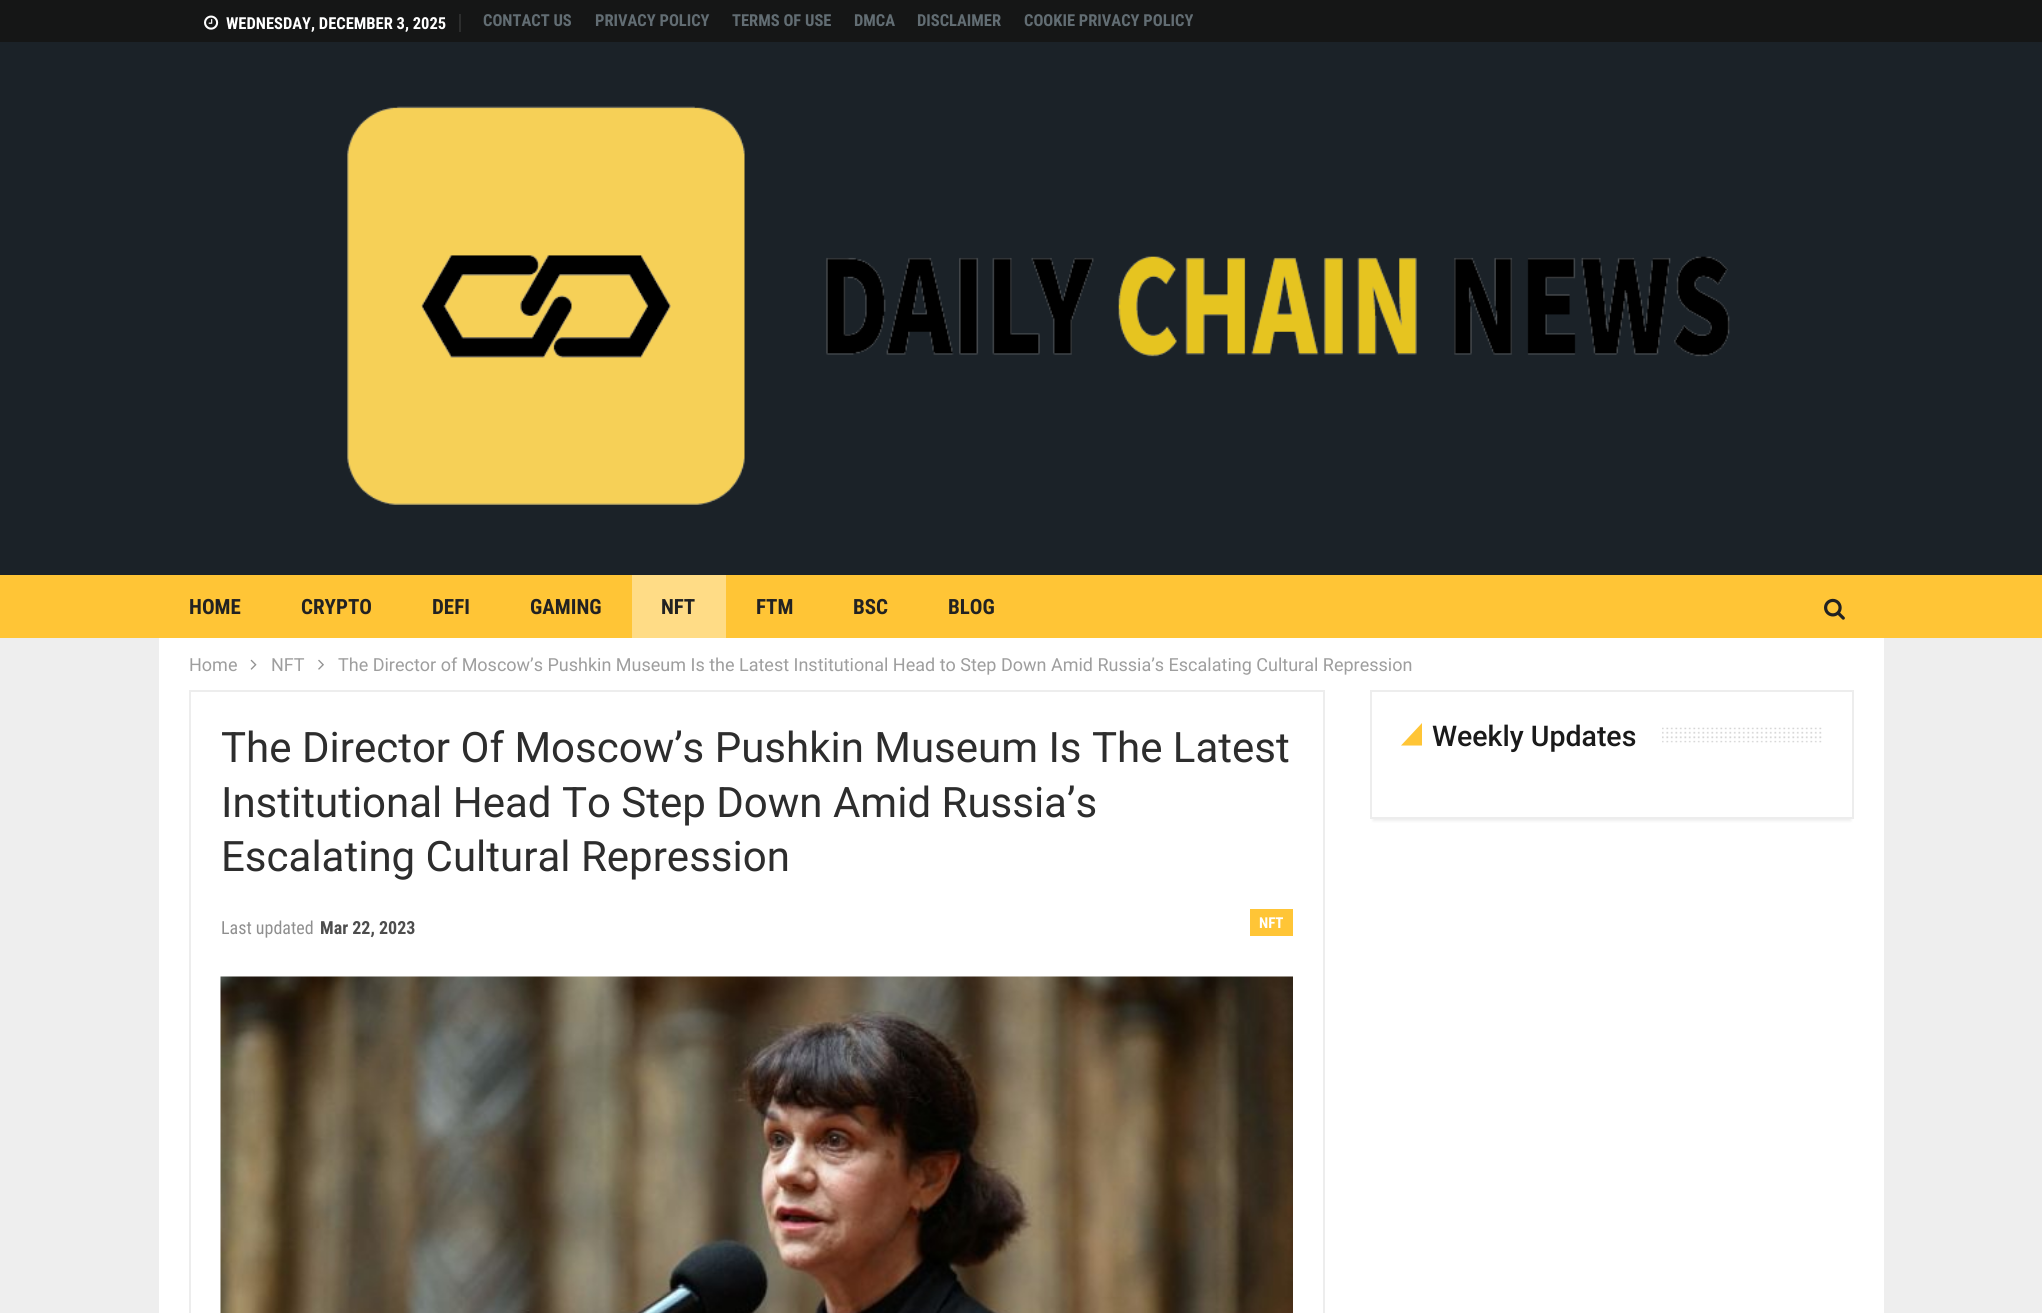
#include <cairo.h>
#include <math.h>
#include <stddef.h>


static void rgb(cairo_t *cr, int r, int g, int b)
{
	cairo_set_source_rgb(cr, r / 255.0, g / 255.0, b / 255.0);
}

static void face(cairo_t *cr, const char *family, double size, int italic, int bold)
{
	cairo_select_font_face(cr, family, italic ? CAIRO_FONT_SLANT_ITALIC : CAIRO_FONT_SLANT_NORMAL,
		bold ? CAIRO_FONT_WEIGHT_BOLD : CAIRO_FONT_WEIGHT_NORMAL);
	cairo_set_font_size(cr, size);
}

static void label(cairo_t *cr, double x, double y, const char *s)
{
	cairo_move_to(cr, x, y);
	cairo_show_text(cr, s);
}

static void rect(cairo_t *cr, double x, double y, double w, double h)
{
	cairo_rectangle(cr, x, y, w, h);
	cairo_fill(cr);
}

static void rrect(cairo_t *cr, double x, double y, double w, double h, double r)
{
	cairo_new_sub_path(cr);
	cairo_arc(cr, x + w - r, y + h - r, r, 0, M_PI / 2);
	cairo_arc(cr, x + r, y + h - r, r, M_PI / 2, M_PI);
	cairo_arc(cr, x + r, y + r, r, M_PI, 1.5 * M_PI);
	cairo_arc(cr, x + w - r, y + r, r, 1.5 * M_PI, 2 * M_PI);
	cairo_close_path(cr);
}

static void soft_shadow(cairo_t *cr, double x, double y, double w, double h, double r, double blur, double alpha)
{
	cairo_push_group_with_content(cr, CAIRO_CONTENT_ALPHA);
	cairo_set_operator(cr, CAIRO_OPERATOR_SOURCE);
	for (int i = 15; i >= -15 && fmin(w, h) + blur * i / 3 > 0; i -= 2) {
		double e = blur * i / 6;
		cairo_set_source_rgba(cr, 0, 0, 0, alpha * erfc((i - 1) / 8.5) / 2);
		rrect(cr, x - e, y - e, w + 2 * e, h + 2 * e, fmax(0, fmin(r + e + blur * .6, fmin(w, h) / 2 + e)));
		cairo_fill(cr);
	}
	cairo_pattern_t *soft = cairo_pop_group(cr);
	cairo_mask(cr, soft);
	cairo_pattern_destroy(soft);
}

static void image(cairo_t *cr, const char *path, double x, double y, double w, double h)
{
	cairo_surface_t *image = cairo_image_surface_create_from_png(path);
	cairo_save(cr);
	cairo_set_source_surface(cr, image, x, y);
	cairo_rectangle(cr, x, y, w, h);
	cairo_fill(cr);
	cairo_restore(cr);
	cairo_surface_destroy(image);
}

static void draw(cairo_t *cr) {
	rgb(cr, 238, 238, 238);
	cairo_paint(cr);
	rgb(cr, 27, 34, 40);
	rect(cr, 0, 42, 2042, 533);
	rgb(cr, 21, 22, 22);
	rect(cr, 0, 0, 2042, 42);
	image(cr, "image0.png", 204, 15, 15, 15);
	face(cr, "Roboto Condensed", 16.5, 0, 1);
	rgb(cr, 255, 255, 255);
	label(cr, 226, 29, "WEDNESDAY, DECEMBER 3, 2025");
	rgb(cr, 44, 45, 45);
	rect(cr, 459, 14, 2, 18);
	rgb(cr, 98, 109, 115);
	label(cr, 483, 26, "CONTACT US");
	label(cr, 595, 26, "PRIVACY POLICY");
	label(cr, 732, 26, "TERMS OF USE");
	label(cr, 854, 26, "DMCA");
	label(cr, 917, 26, "DISCLAIMER");
	label(cr, 1024, 26, "COOKIE PRIVACY POLICY");
	image(cr, "image1.png", 347, 106, 1383, 399);
	rgb(cr, 255, 197, 54);
	rect(cr, 0, 575, 2042, 63);
	face(cr, "Roboto Condensed", 21, 0, 1);
	rgb(cr, 34, 34, 34);
	label(cr, 189, 614, "HOME");
	label(cr, 301, 614, "CRYPTO");
	label(cr, 432, 614, "DEFI");
	label(cr, 530, 614, "GAMING");
	rgb(cr, 255, 220, 134);
	rect(cr, 632, 575, 94, 63);
	rgb(cr, 34, 34, 34);
	label(cr, 661, 614, "NFT");
	label(cr, 756, 614, "FTM");
	label(cr, 853, 614, "BSC");
	label(cr, 948, 614, "BLOG");
	image(cr, "image2.png", 1824, 598, 21, 22);
	rgb(cr, 255, 255, 255);
	rect(cr, 159, 638, 1725, 675);
	face(cr, "Roboto", 18, 0, 0);
	rgb(cr, 158, 158, 158);
	label(cr, 189, 671, "Home");
	image(cr, "image3.png", 250, 659, 7, 11);
	label(cr, 271, 671, "NFT");
	image(cr, "image4.png", 318, 659, 6, 11);
	label(cr, 338, 671, "The Director of Moscow’s Pushkin Museum Is the Latest Institutional Head to Step Down Amid Russia’s Escalating Cultural Repression");
	cairo_rectangle(cr, 190, 691, 1134, 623);
	rgb(cr, 237, 237, 237);
	cairo_stroke(cr);
	face(cr, "Roboto", 42, 0, 0);
	rgb(cr, 45, 45, 45);
	label(cr, 221, 762, "The Director Of Moscow’s Pushkin Museum Is The Latest");
	label(cr, 221, 817, "Institutional Head To Step Down Amid Russia’s");
	label(cr, 221, 871, "Escalating Cultural Repression");
	face(cr, "Roboto Condensed", 18, 0, 0);
	rgb(cr, 143, 143, 143);
	label(cr, 221, 934, "Last updated");
	face(cr, "Roboto Condensed", 18, 0, 1);
	rgb(cr, 77, 77, 77);
	label(cr, 320, 934, "Mar 22, 2023");
	rgb(cr, 255, 197, 54);
	rect(cr, 1250, 909, 43, 27);
	face(cr, "Roboto Condensed", 15, 0, 1);
	rgb(cr, 255, 255, 255);
	label(cr, 1259, 928, "NFT");
	image(cr, "image5.png", 220, 976, 1073, 337);
	cairo_save(cr);
	cairo_rectangle(cr, 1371, 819, 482, 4);
	cairo_clip(cr);
	rgb(cr, 169, 169, 169);
	soft_shadow(cr, 1373, 698, 478, 123, 0, 1.5, 0.2);
	cairo_restore(cr);
	cairo_rectangle(cr, 1371, 691, 482, 127);
	rgb(cr, 237, 237, 237);
	cairo_stroke(cr);
	rgb(cr, 255, 197, 54);
	cairo_new_path(cr);
	cairo_move_to(cr, 1422, 723);
	cairo_line_to(cr, 1422, 745.5);
	cairo_line_to(cr, 1401, 745.5);
	cairo_close_path(cr);
	cairo_fill(cr);
	face(cr, "Roboto Medium", 28.5, 0, 0);
	rgb(cr, 26, 26, 26);
	label(cr, 1432, 746, "Weekly Updates");
	image(cr, "image6.png", 1662, 727, 160, 16);
}

int main(void) {
	cairo_surface_t *surface = cairo_image_surface_create(CAIRO_FORMAT_RGB24, 2042, 1313);
	cairo_t *cr = cairo_create(surface);
	cairo_font_options_t *options = cairo_font_options_create();
	cairo_font_options_set_hint_metrics(options, CAIRO_HINT_METRICS_OFF);
	cairo_font_options_set_hint_style(options, CAIRO_HINT_STYLE_NONE);
	cairo_set_font_options(cr, options);
	cairo_set_miter_limit(cr, 4);
	draw(cr);
	cairo_surface_write_to_png(surface, "render.png");
	cairo_font_options_destroy(options);
	cairo_destroy(cr);
	cairo_surface_destroy(surface);
	return 0;
}
